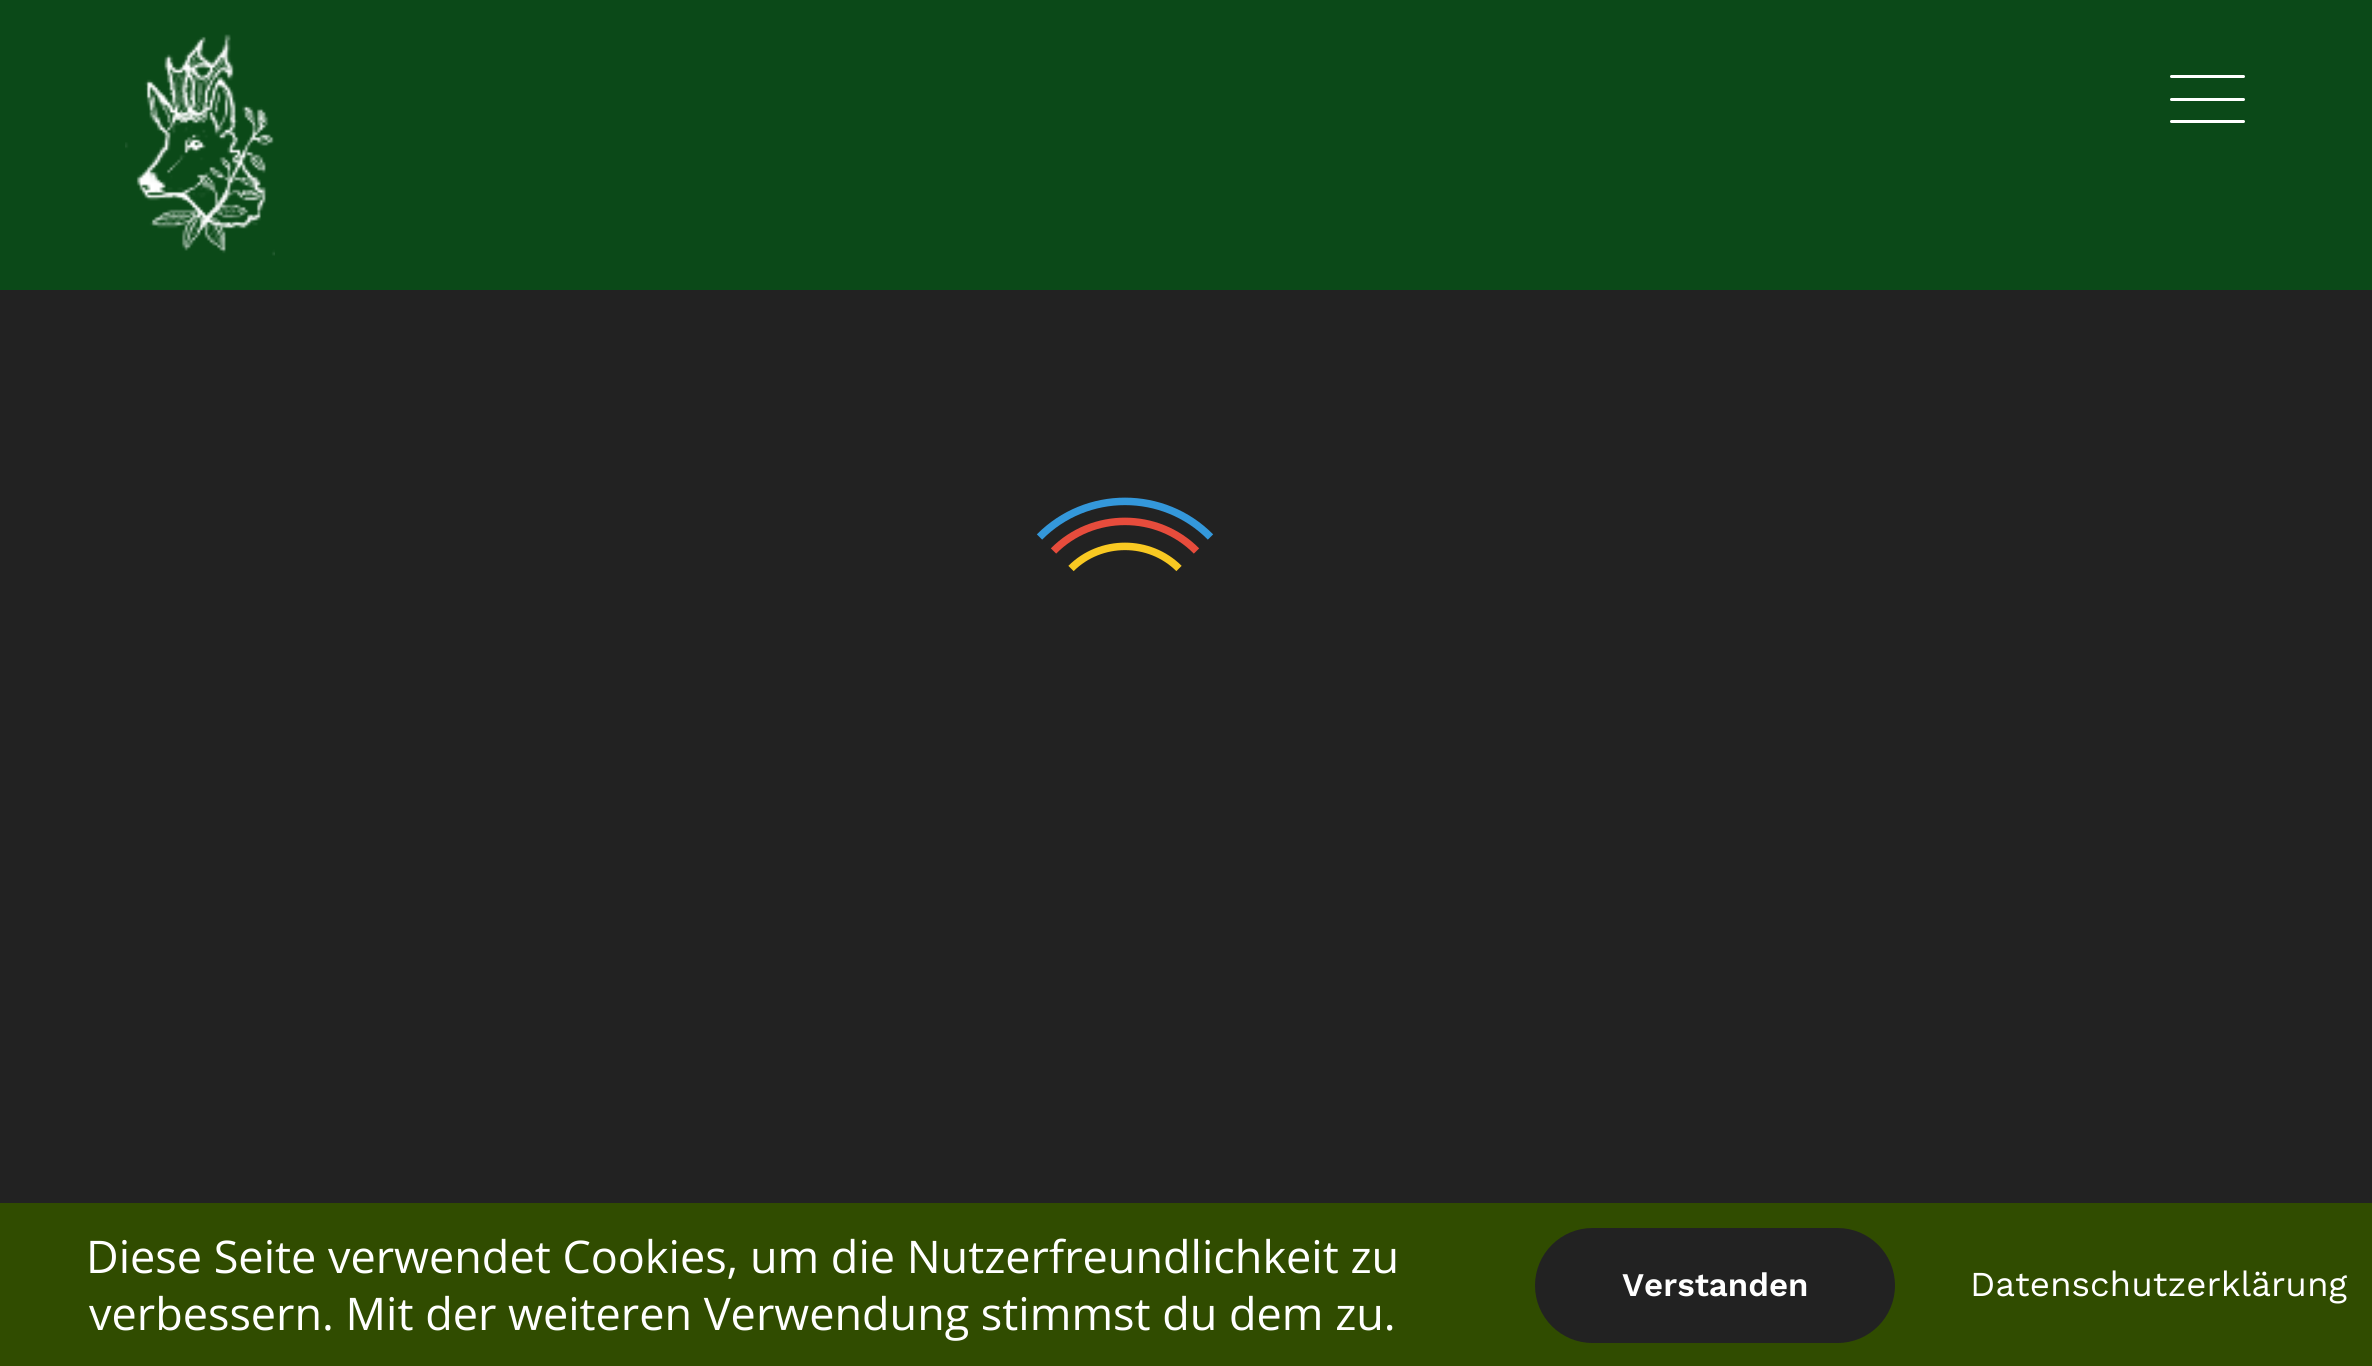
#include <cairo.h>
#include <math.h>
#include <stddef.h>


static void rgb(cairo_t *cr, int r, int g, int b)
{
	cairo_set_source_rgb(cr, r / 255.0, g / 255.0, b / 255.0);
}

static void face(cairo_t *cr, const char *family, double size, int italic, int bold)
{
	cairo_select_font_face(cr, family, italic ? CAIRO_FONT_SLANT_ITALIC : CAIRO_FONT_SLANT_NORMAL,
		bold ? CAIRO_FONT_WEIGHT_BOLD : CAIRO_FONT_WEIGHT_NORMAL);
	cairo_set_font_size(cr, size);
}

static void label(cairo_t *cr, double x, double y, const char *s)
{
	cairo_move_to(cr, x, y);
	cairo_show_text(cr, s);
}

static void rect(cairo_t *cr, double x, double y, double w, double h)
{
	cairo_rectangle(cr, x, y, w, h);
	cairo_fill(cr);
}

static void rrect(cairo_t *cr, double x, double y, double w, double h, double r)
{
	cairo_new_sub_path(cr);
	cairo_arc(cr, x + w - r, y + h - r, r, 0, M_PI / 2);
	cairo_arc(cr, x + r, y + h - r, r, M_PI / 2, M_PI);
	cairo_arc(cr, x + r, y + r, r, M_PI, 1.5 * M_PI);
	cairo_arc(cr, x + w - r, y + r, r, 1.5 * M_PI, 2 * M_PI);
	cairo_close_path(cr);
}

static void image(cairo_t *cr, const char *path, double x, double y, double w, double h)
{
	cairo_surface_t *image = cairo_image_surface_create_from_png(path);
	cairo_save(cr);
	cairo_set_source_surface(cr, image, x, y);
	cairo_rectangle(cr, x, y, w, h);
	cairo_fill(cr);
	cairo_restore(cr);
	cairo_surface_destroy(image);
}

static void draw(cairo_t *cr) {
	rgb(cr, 34, 34, 34);
	cairo_paint(cr);
	rgb(cr, 11, 73, 24);
	rect(cr, 0, 0, 2372, 290);
	image(cr, "image0.png", 125, 34, 150, 222);
	rgb(cr, 255, 255, 255);
	rrect(cr, 2170, 75, 75, 3, 1.5);
	cairo_fill(cr);
	rrect(cr, 2170, 98, 75, 3, 1.5);
	cairo_fill(cr);
	rrect(cr, 2170, 120, 75, 3, 1.5);
	cairo_fill(cr);
	cairo_new_path(cr);
	cairo_move_to(cr, 1039.5, 537);
	cairo_curve_to(cr, 1086.5, 489.5, 1163.5, 489.5, 1210.5, 537);
	rgb(cr, 52, 152, 219);
	cairo_set_line_width(cr, 7.5);
	cairo_stroke(cr);
	cairo_new_path(cr);
	cairo_move_to(cr, 1053.5, 551);
	cairo_curve_to(cr, 1092.5, 511.5, 1157.5, 511.5, 1196.5, 551);
	rgb(cr, 231, 76, 60);
	cairo_stroke(cr);
	cairo_new_path(cr);
	cairo_move_to(cr, 1071, 568.5);
	cairo_curve_to(cr, 1100.5, 539, 1149.5, 539, 1179, 568.5);
	rgb(cr, 249, 201, 34);
	cairo_stroke(cr);
	rgb(cr, 48, 76, 0);
	rect(cr, 0, 1203, 2372, 163);
	face(cr, "Open Sans", 45, 0, 0);
	rgb(cr, 255, 255, 255);
	label(cr, 86, 1273, "Diese Seite verwendet Cookies, um die Nutzerfreundlichkeit zu");
	label(cr, 89, 1330, "verbessern. Mit der weiteren Verwendung stimmst du dem zu.");
	rgb(cr, 34, 34, 34);
	rrect(cr, 1535, 1228, 360, 115, 57.5);
	cairo_fill(cr);
	face(cr, "Work Sans SemiBold", 33, 0, 0);
	rgb(cr, 255, 255, 255);
	label(cr, 1622, 1296, "Verstanden");
	face(cr, "Work Sans", 35, 0, 0);
	label(cr, 1970, 1296, "Datenschutzerklärung");
}

int main(void) {
	cairo_surface_t *surface = cairo_image_surface_create(CAIRO_FORMAT_RGB24, 2372, 1366);
	cairo_t *cr = cairo_create(surface);
	cairo_font_options_t *options = cairo_font_options_create();
	cairo_font_options_set_hint_metrics(options, CAIRO_HINT_METRICS_OFF);
	cairo_font_options_set_hint_style(options, CAIRO_HINT_STYLE_NONE);
	cairo_set_font_options(cr, options);
	cairo_set_miter_limit(cr, 4);
	draw(cr);
	cairo_surface_write_to_png(surface, "render.png");
	cairo_font_options_destroy(options);
	cairo_destroy(cr);
	cairo_surface_destroy(surface);
	return 0;
}
